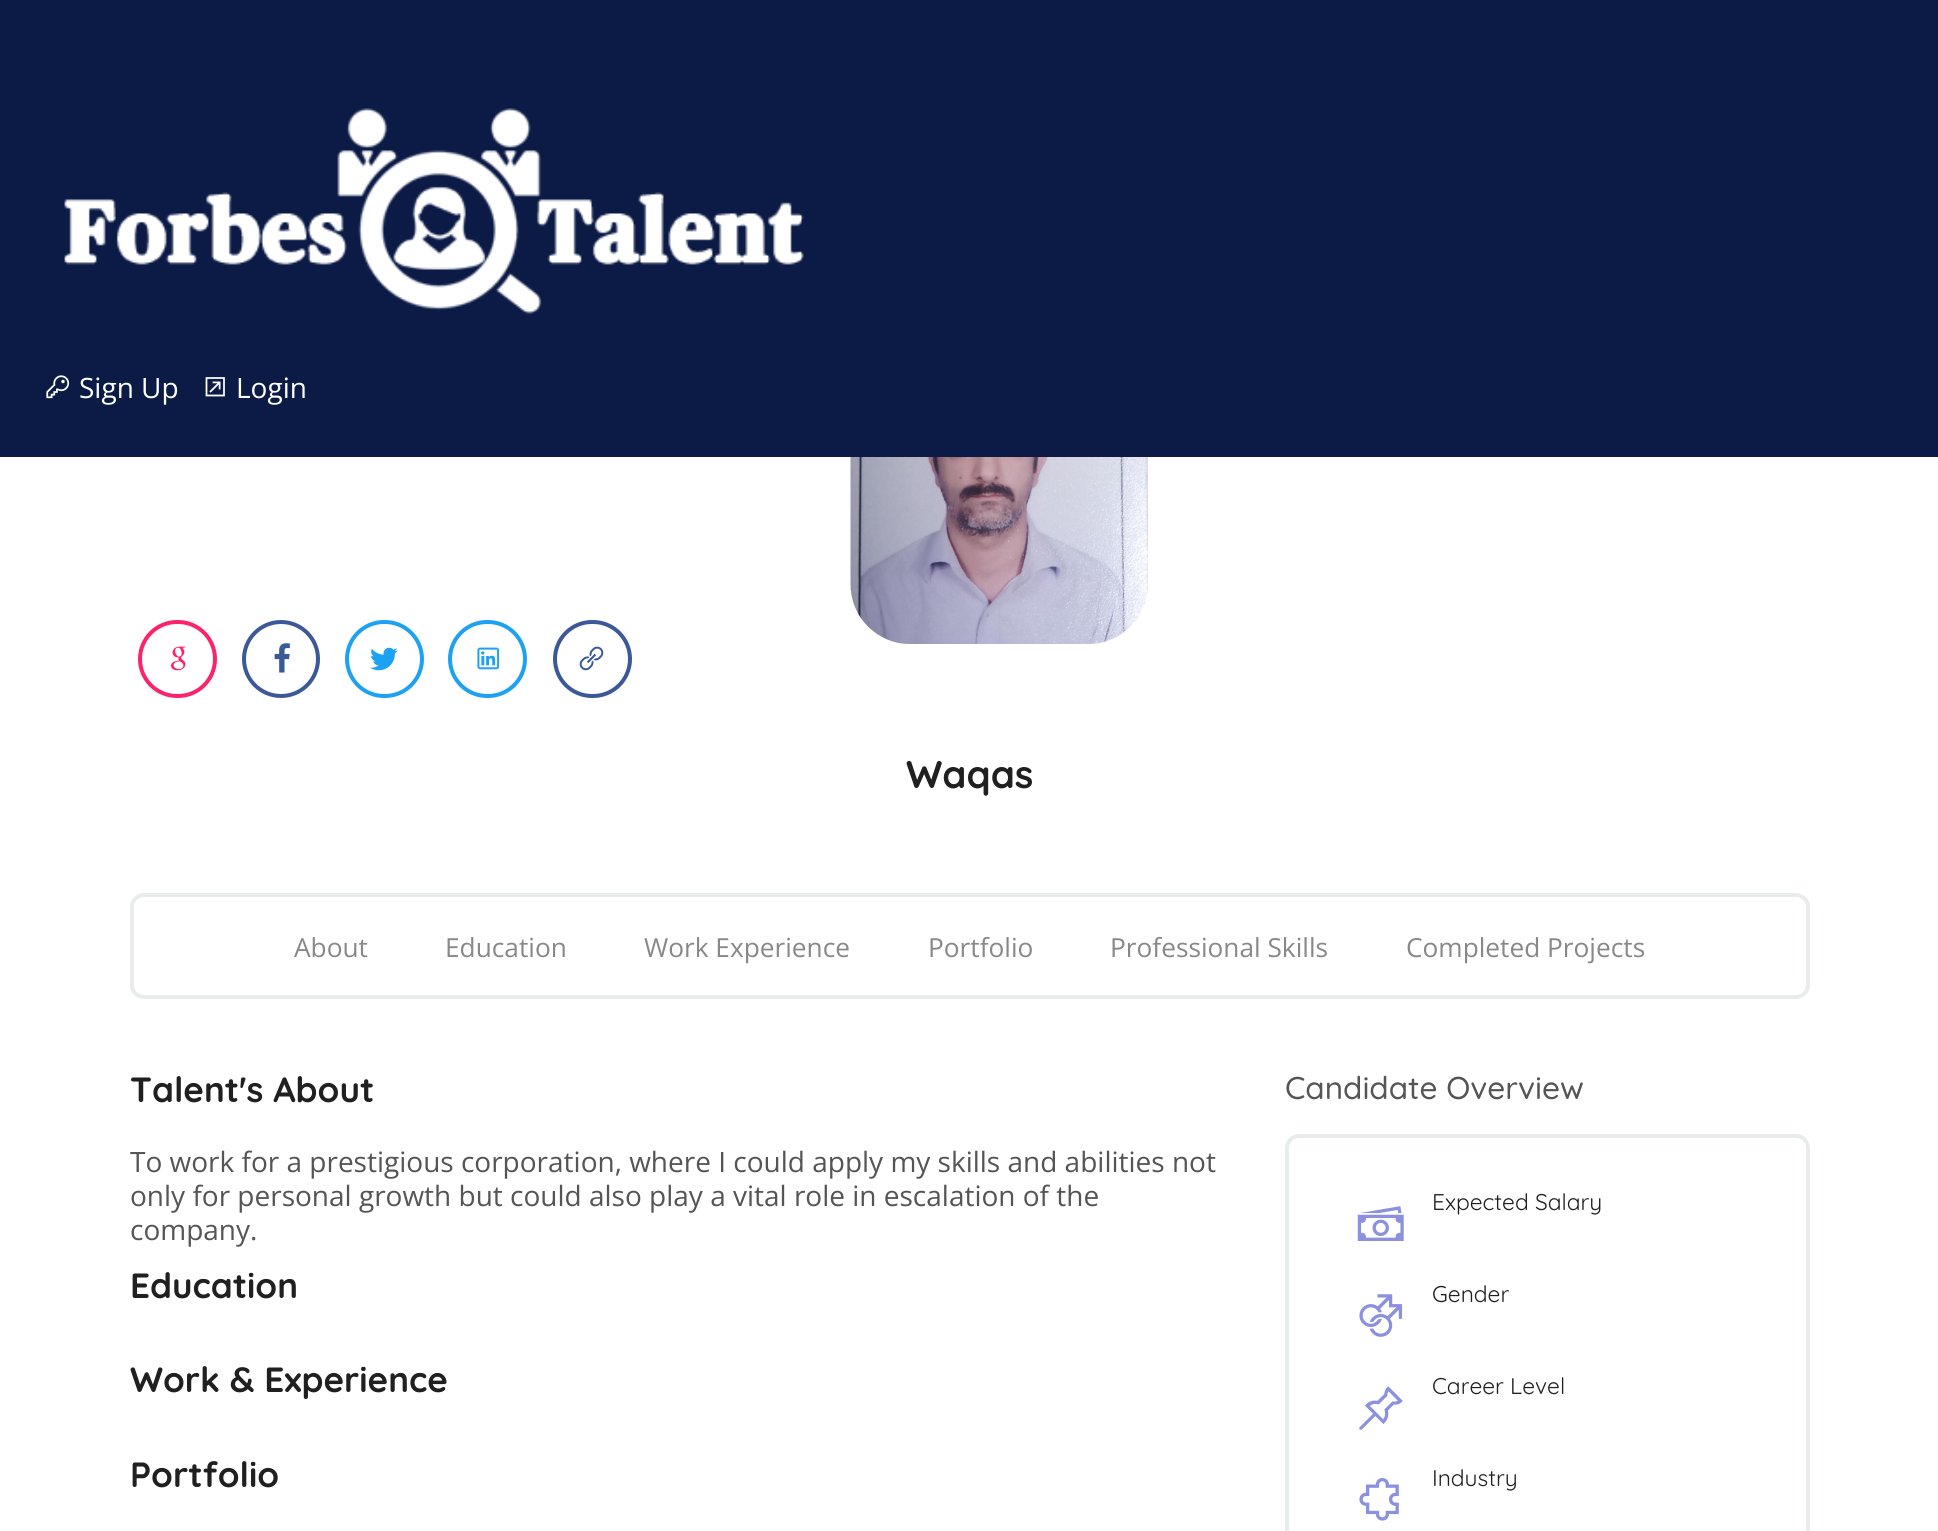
#include <cairo.h>
#include <math.h>
#include <stddef.h>


static void rgb(cairo_t *cr, int r, int g, int b)
{
	cairo_set_source_rgb(cr, r / 255.0, g / 255.0, b / 255.0);
}

static void face(cairo_t *cr, const char *family, double size, int italic, int bold)
{
	cairo_select_font_face(cr, family, italic ? CAIRO_FONT_SLANT_ITALIC : CAIRO_FONT_SLANT_NORMAL,
		bold ? CAIRO_FONT_WEIGHT_BOLD : CAIRO_FONT_WEIGHT_NORMAL);
	cairo_set_font_size(cr, size);
}

static void label(cairo_t *cr, double x, double y, const char *s)
{
	cairo_move_to(cr, x, y);
	cairo_show_text(cr, s);
}

static void rect(cairo_t *cr, double x, double y, double w, double h)
{
	cairo_rectangle(cr, x, y, w, h);
	cairo_fill(cr);
}

static void rrect(cairo_t *cr, double x, double y, double w, double h, double r)
{
	cairo_new_sub_path(cr);
	cairo_arc(cr, x + w - r, y + h - r, r, 0, M_PI / 2);
	cairo_arc(cr, x + r, y + h - r, r, M_PI / 2, M_PI);
	cairo_arc(cr, x + r, y + r, r, M_PI, 1.5 * M_PI);
	cairo_arc(cr, x + w - r, y + r, r, 1.5 * M_PI, 2 * M_PI);
	cairo_close_path(cr);
}

static void image(cairo_t *cr, const char *path, double x, double y, double w, double h)
{
	cairo_surface_t *image = cairo_image_surface_create_from_png(path);
	cairo_save(cr);
	cairo_set_source_surface(cr, image, x, y);
	cairo_rectangle(cr, x, y, w, h);
	cairo_fill(cr);
	cairo_restore(cr);
	cairo_surface_destroy(image);
}

static void draw(cairo_t *cr) {
	rgb(cr, 255, 255, 255);
	cairo_paint(cr);
	rgb(cr, 11, 27, 70);
	rect(cr, 0, 0, 1938, 457);
	image(cr, "image0.png", 64, 108, 740, 206);
	image(cr, "image1.png", 46, 375, 24, 24);
	face(cr, "Open Sans", 28, 0, 0);
	rgb(cr, 255, 255, 255);
	label(cr, 79, 398, "Sign Up");
	image(cr, "image2.png", 205, 377, 20, 20);
	label(cr, 236, 398, "Login");
	rrect(cr, 140, 622, 75, 74, 37);
	rgb(cr, 251, 35, 106);
	cairo_set_line_width(cr, 4);
	cairo_stroke(cr);
	image(cr, "image3.png", 171, 646, 15, 25);
	cairo_arc(cr, 281, 659, 37, 0, 2 * M_PI);
	rgb(cr, 59, 89, 152);
	cairo_stroke(cr);
	image(cr, "image4.png", 274, 643, 16, 30);
	rrect(cr, 347, 622, 75, 74, 37);
	rgb(cr, 29, 161, 242);
	cairo_stroke(cr);
	image(cr, "image5.png", 370, 647, 28, 24);
	rrect(cr, 450, 622, 75, 74, 37);
	cairo_stroke(cr);
	image(cr, "image6.png", 477, 647, 23, 23);
	rrect(cr, 555, 622, 75, 74, 37);
	rgb(cr, 59, 89, 152);
	cairo_stroke(cr);
	image(cr, "image7.png", 579, 646, 25, 25);
	image(cr, "image8.png", 850, 457, 298, 187);
	face(cr, "Quicksand", 38.5, 0, 1);
	rgb(cr, 32, 32, 32);
	label(cr, 906, 788, "Waqas");
	rrect(cr, 132, 895, 1676, 102, 12);
	rgb(cr, 232, 236, 236);
	cairo_stroke(cr);
	face(cr, "Open Sans", 26.25, 0, 0);
	rgb(cr, 136, 136, 136);
	label(cr, 294, 957, "About");
	label(cr, 445, 957, "Education");
	label(cr, 644, 957, "Work Experience");
	label(cr, 928, 957, "Portfolio");
	label(cr, 1110, 957, "Professional Skills");
	label(cr, 1406, 957, "Completed Projects");
	face(cr, "Quicksand", 35, 0, 1);
	rgb(cr, 32, 32, 32);
	label(cr, 130, 1102, "Talent's About");
	face(cr, "Open Sans", 28, 0, 0);
	rgb(cr, 85, 85, 85);
	label(cr, 130, 1172, "To work for a prestigious corporation, where I could apply my skills and abilities not");
	label(cr, 130, 1206, "only for personal growth but could also play a vital role in escalation of the");
	label(cr, 130, 1240, "company.");
	face(cr, "Quicksand", 35, 0, 1);
	rgb(cr, 32, 32, 32);
	label(cr, 130, 1298, "Education");
	label(cr, 130, 1392, "Work & Experience");
	label(cr, 130, 1487, "Portfolio");
	face(cr, "Quicksand Medium", 31.5, 0, 0);
	rgb(cr, 85, 85, 85);
	label(cr, 1285, 1099, "Candidate Overview");
	rrect(cr, 1287, 1136, 521, 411, 12);
	rgb(cr, 232, 236, 236);
	cairo_stroke(cr);
	image(cr, "image9.png", 1357, 1206, 47, 35);
	face(cr, "Quicksand", 22.75, 0, 0);
	rgb(cr, 32, 32, 32);
	label(cr, 1432, 1210, "Expected Salary");
	image(cr, "image10.png", 1359, 1294, 44, 43);
	label(cr, 1432, 1302, "Gender");
	image(cr, "image11.png", 1359, 1386, 44, 44);
	label(cr, 1432, 1394, "Career Level");
	image(cr, "image12.png", 1359, 1478, 40, 43);
	label(cr, 1432, 1486, "Industry");
}

int main(void) {
	cairo_surface_t *surface = cairo_image_surface_create(CAIRO_FORMAT_RGB24, 1938, 1531);
	cairo_t *cr = cairo_create(surface);
	cairo_font_options_t *options = cairo_font_options_create();
	cairo_font_options_set_hint_metrics(options, CAIRO_HINT_METRICS_OFF);
	cairo_font_options_set_hint_style(options, CAIRO_HINT_STYLE_NONE);
	cairo_set_font_options(cr, options);
	cairo_set_miter_limit(cr, 4);
	draw(cr);
	cairo_surface_write_to_png(surface, "render.png");
	cairo_font_options_destroy(options);
	cairo_destroy(cr);
	cairo_surface_destroy(surface);
	return 0;
}
